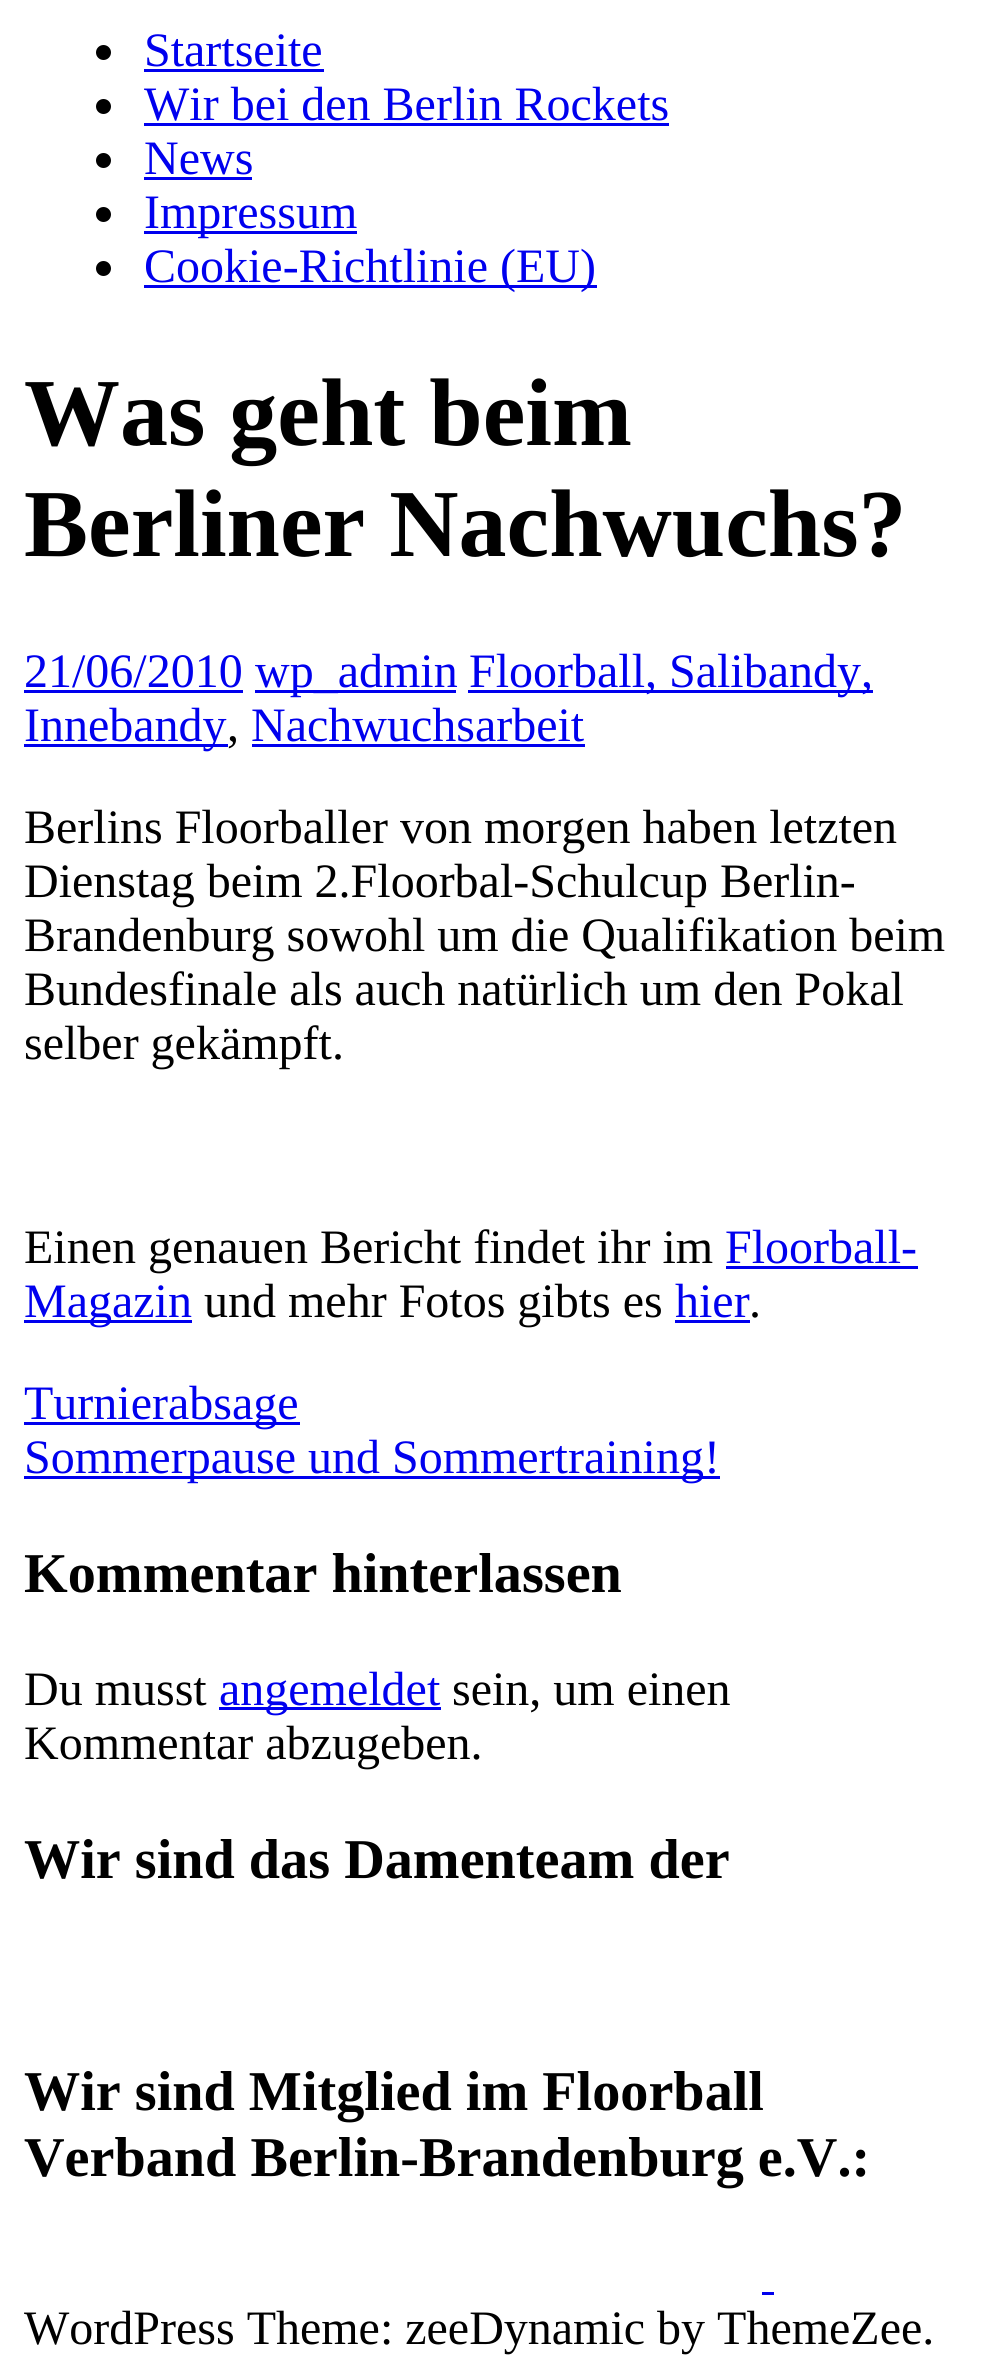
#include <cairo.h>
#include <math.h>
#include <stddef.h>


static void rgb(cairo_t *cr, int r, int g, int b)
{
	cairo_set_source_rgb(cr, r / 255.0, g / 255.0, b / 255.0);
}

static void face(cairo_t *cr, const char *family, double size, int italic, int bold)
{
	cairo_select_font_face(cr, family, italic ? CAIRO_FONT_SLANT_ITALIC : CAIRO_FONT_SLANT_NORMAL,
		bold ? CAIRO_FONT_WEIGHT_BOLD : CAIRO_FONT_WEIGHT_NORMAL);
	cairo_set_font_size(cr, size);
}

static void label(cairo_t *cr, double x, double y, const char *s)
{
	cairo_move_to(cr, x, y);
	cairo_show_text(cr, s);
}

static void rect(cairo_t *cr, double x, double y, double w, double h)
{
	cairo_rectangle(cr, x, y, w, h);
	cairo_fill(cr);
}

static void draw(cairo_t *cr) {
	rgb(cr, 255, 255, 255);
	cairo_paint(cr);
	rgb(cr, 0, 0, 0);
	cairo_arc(cr, 103.5, 52.5, 7.5, 0, 2 * M_PI);
	cairo_fill(cr);
	face(cr, "Liberation Serif", 48, 0, 0);
	rgb(cr, 0, 0, 238);
	label(cr, 144, 66, "Startseite");
	rect(cr, 144, 69, 180, 3);
	rgb(cr, 0, 0, 0);
	cairo_new_path(cr);
	cairo_arc(cr, 103.5, 106.5, 7.5, 0, 2 * M_PI);
	cairo_fill(cr);
	rgb(cr, 0, 0, 238);
	label(cr, 144, 120, "Wir bei den Berlin Rockets");
	rect(cr, 144, 123, 525, 3);
	rgb(cr, 0, 0, 0);
	cairo_new_path(cr);
	cairo_arc(cr, 103.5, 160.5, 7.5, 0, 2 * M_PI);
	cairo_fill(cr);
	rgb(cr, 0, 0, 238);
	label(cr, 144, 174, "News");
	rect(cr, 144, 177, 108, 3);
	rgb(cr, 0, 0, 0);
	cairo_new_path(cr);
	cairo_arc(cr, 103.5, 214.5, 7.5, 0, 2 * M_PI);
	cairo_fill(cr);
	rgb(cr, 0, 0, 238);
	rect(cr, 144, 231, 213, 3);
	label(cr, 144, 228, "Impressum");
	rgb(cr, 0, 0, 0);
	cairo_new_path(cr);
	cairo_arc(cr, 103.5, 268.5, 7.5, 0, 2 * M_PI);
	cairo_fill(cr);
	rgb(cr, 0, 0, 238);
	rect(cr, 144, 285, 453, 3);
	label(cr, 144, 282, "Cookie-Richtlinie (EU)");
	face(cr, "Liberation Serif", 96, 0, 1);
	rgb(cr, 0, 0, 0);
	label(cr, 24, 445, "Was geht beim");
	label(cr, 24, 556, "Berliner Nachwuchs?");
	face(cr, "Liberation Serif", 48, 0, 0);
	rgb(cr, 0, 0, 238);
	label(cr, 24, 687, "21/06/2010");
	rect(cr, 24, 690, 219, 3);
	rect(cr, 255, 690, 201, 3);
	label(cr, 255, 687, "wp_admin");
	rect(cr, 468, 690, 405, 3);
	label(cr, 469, 687, "Floorball, Salibandy,");
	rect(cr, 24, 744, 204, 3);
	label(cr, 24, 741, "Innebandy");
	rgb(cr, 0, 0, 0);
	label(cr, 227, 741, ",");
	rgb(cr, 0, 0, 238);
	rect(cr, 252, 744, 333, 3);
	label(cr, 251, 741, "Nachwuchsarbeit");
	rgb(cr, 0, 0, 0);
	label(cr, 24, 843, "Berlins Floorballer von morgen haben letzten");
	label(cr, 24, 897, "Dienstag beim 2.Floorbal-Schulcup Berlin-");
	label(cr, 24, 951, "Brandenburg sowohl um die Qualifikation beim");
	label(cr, 24, 1005, "Bundesfinale als auch natürlich um den Pokal");
	label(cr, 24, 1059, "selber gekämpft.");
	label(cr, 24, 1263, "Einen genauen Bericht findet ihr im");
	rgb(cr, 0, 0, 238);
	label(cr, 725, 1263, "Floorball-");
	rect(cr, 726, 1266, 192, 3);
	rect(cr, 24, 1320, 168, 3);
	label(cr, 24, 1317, "Magazin");
	rgb(cr, 0, 0, 0);
	label(cr, 204, 1317, "und mehr Fotos gibts es");
	rgb(cr, 0, 0, 238);
	label(cr, 675, 1317, "hier");
	rect(cr, 675, 1320, 75, 3);
	rgb(cr, 0, 0, 0);
	label(cr, 749, 1317, ".");
	rgb(cr, 0, 0, 238);
	rect(cr, 24, 1422, 276, 3);
	label(cr, 24, 1419, "Turnierabsage");
	rect(cr, 24, 1476, 696, 3);
	label(cr, 24, 1473, "Sommerpause und Sommertraining!");
	face(cr, "Liberation Serif", 56.2, 0, 1);
	rgb(cr, 0, 0, 0);
	label(cr, 24, 1592, "Kommentar hinterlassen");
	face(cr, "Liberation Serif", 48, 0, 0);
	label(cr, 24, 1705, "Du musst");
	rgb(cr, 0, 0, 238);
	rect(cr, 219, 1707, 222, 3);
	label(cr, 219, 1705, "angemeldet");
	rgb(cr, 0, 0, 0);
	label(cr, 452, 1705, "sein, um einen");
	label(cr, 24, 1759, "Kommentar abzugeben.");
	face(cr, "Liberation Serif", 56.2, 0, 1);
	label(cr, 24, 1878, "Wir sind das Damenteam der");
	label(cr, 24, 2110, "Wir sind Mitglied im Floorball");
	label(cr, 24, 2176, "Verband Berlin-Brandenburg e.V.:");
	rgb(cr, 0, 0, 238);
	rect(cr, 762, 2292, 12, 3);
	face(cr, "Liberation Serif", 48, 0, 0);
	rgb(cr, 0, 0, 0);
	label(cr, 24, 2344, "WordPress Theme: zeeDynamic by ThemeZee.");
}

int main(void) {
	cairo_surface_t *surface = cairo_image_surface_create(CAIRO_FORMAT_RGB24, 984, 2379);
	cairo_t *cr = cairo_create(surface);
	cairo_font_options_t *options = cairo_font_options_create();
	cairo_font_options_set_hint_metrics(options, CAIRO_HINT_METRICS_OFF);
	cairo_font_options_set_hint_style(options, CAIRO_HINT_STYLE_NONE);
	cairo_set_font_options(cr, options);
	cairo_set_miter_limit(cr, 4);
	draw(cr);
	cairo_surface_write_to_png(surface, "render.png");
	cairo_font_options_destroy(options);
	cairo_destroy(cr);
	cairo_surface_destroy(surface);
	return 0;
}
